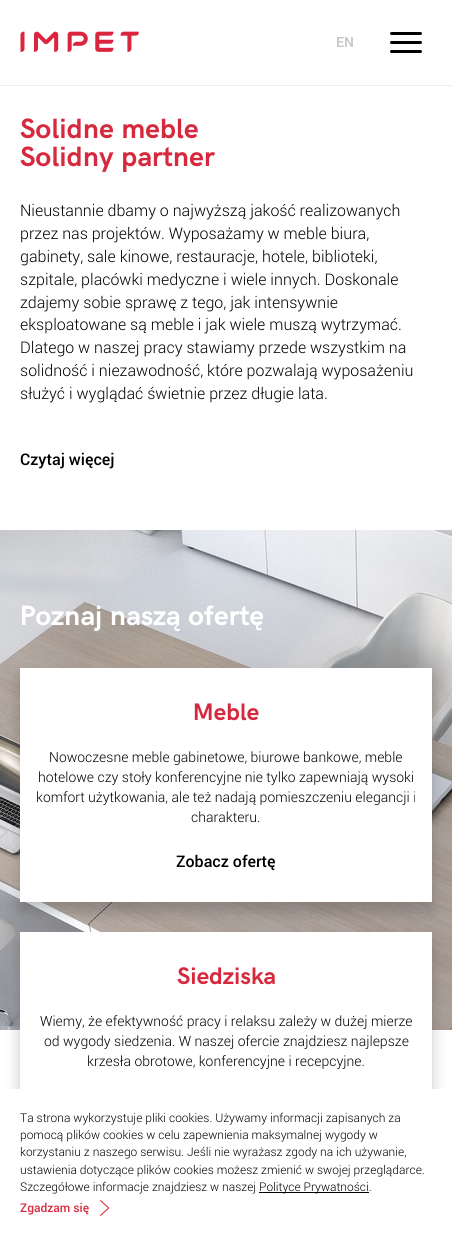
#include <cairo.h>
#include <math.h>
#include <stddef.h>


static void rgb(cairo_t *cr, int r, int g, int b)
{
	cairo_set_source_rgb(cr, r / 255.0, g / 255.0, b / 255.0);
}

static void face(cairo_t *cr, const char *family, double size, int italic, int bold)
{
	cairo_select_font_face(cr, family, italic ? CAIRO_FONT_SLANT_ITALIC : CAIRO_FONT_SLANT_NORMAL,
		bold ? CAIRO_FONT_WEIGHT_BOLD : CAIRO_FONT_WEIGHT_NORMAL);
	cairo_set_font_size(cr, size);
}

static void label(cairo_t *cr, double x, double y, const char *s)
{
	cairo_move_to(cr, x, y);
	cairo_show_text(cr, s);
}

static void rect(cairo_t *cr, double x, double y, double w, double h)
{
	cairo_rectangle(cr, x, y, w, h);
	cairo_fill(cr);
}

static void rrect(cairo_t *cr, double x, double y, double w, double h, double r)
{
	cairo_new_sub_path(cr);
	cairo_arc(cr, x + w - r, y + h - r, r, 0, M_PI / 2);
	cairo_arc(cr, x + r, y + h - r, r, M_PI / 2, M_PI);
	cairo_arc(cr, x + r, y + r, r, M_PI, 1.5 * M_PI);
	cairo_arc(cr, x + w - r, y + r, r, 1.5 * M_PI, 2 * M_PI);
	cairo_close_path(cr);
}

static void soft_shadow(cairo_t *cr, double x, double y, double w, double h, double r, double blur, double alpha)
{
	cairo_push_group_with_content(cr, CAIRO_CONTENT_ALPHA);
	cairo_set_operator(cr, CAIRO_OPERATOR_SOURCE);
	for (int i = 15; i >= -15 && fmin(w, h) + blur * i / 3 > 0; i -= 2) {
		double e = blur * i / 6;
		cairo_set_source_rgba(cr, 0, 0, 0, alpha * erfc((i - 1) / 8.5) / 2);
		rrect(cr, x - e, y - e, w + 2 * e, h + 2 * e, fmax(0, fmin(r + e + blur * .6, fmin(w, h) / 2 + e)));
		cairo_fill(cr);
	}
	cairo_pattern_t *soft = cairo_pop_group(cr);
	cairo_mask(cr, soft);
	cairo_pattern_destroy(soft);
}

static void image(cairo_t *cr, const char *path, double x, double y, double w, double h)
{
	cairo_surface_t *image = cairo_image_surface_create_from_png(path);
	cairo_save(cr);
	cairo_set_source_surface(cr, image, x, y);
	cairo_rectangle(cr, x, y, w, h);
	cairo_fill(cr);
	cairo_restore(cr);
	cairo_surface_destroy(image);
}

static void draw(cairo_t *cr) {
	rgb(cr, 255, 255, 255);
	cairo_paint(cr);
	rgb(cr, 236, 236, 236);
	rect(cr, 0, 85, 452, 1);
	image(cr, "image0.png", 20, 31, 119, 21);
	face(cr, "Roboto Medium", 14, 0, 0);
	rgb(cr, 195, 195, 195);
	label(cr, 336, 47, "EN");
	rgb(cr, 0, 0, 0);
	rrect(cr, 390, 41, 32, 3, 1.5);
	cairo_fill(cr);
	rrect(cr, 390, 32, 32, 3, 1.5);
	cairo_fill(cr);
	rrect(cr, 390, 50, 32, 3, 1.5);
	cairo_fill(cr);
	face(cr, "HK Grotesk", 28, 0, 1);
	rgb(cr, 215, 41, 62);
	label(cr, 20, 138, "Solidne meble");
	label(cr, 20, 166, "Solidny partner");
	face(cr, "Roboto Light", 16, 0, 0);
	rgb(cr, 0, 0, 0);
	label(cr, 20, 216, "Nieustannie dbamy o najwyższą jakość realizowanych");
	label(cr, 20, 239, "przez nas projektów. Wyposażamy w meble biura,");
	label(cr, 20, 262, "gabinety, sale kinowe, restauracje, hotele, biblioteki,");
	label(cr, 20, 285, "szpitale, placówki medyczne i wiele innych. Doskonale");
	label(cr, 20, 308, "zdajemy sobie sprawę z tego, jak intensywnie");
	label(cr, 20, 330, "eksploatowane są meble i jak wiele muszą wytrzymać.");
	label(cr, 20, 353, "Dlatego w naszej pracy stawiamy przede wszystkim na");
	label(cr, 20, 376, "solidność i niezawodność, które pozwalają wyposażeniu");
	label(cr, 20, 399, "służyć i wyglądać świetnie przez długie lata.");
	face(cr, "Roboto Medium", 16, 0, 0);
	label(cr, 20, 465, "Czytaj więcej");
	image(cr, "image1.png", 0, 530, 452, 500);
	face(cr, "HK Grotesk", 28, 0, 1);
	rgb(cr, 255, 255, 255);
	label(cr, 20, 625, "Poznaj naszą ofertę");
	rgb(cr, 32, 33, 31);
	soft_shadow(cr, 20, 678, 412, 234, 0, 7.5, 0.25);
	rgb(cr, 255, 255, 255);
	rect(cr, 20, 668, 412, 234);
	face(cr, "HK Grotesk", 24, 0, 1);
	rgb(cr, 215, 41, 62);
	label(cr, 193, 720, "Meble");
	face(cr, "Roboto Light", 14, 0, 0);
	rgb(cr, 0, 0, 0);
	label(cr, 49, 762, "Nowoczesne meble gabinetowe, biurowe bankowe, meble");
	label(cr, 38, 782, "hotelowe czy stoły konferencyjne nie tylko zapewniają wysoki");
	label(cr, 36, 802, "komfort użytkowania, ale też nadają pomieszczeniu elegancji i");
	label(cr, 191, 822, "charakteru.");
	face(cr, "Roboto Medium", 16, 0, 0);
	label(cr, 176, 867, "Zobacz ofertę");
	rgb(cr, 32, 33, 31);
	soft_shadow(cr, 20, 942, 412, 214, 0, 7.5, 0.25);
	rgb(cr, 255, 255, 255);
	rect(cr, 20, 932, 412, 157);
	face(cr, "HK Grotesk", 24, 0, 1);
	rgb(cr, 215, 41, 62);
	label(cr, 177, 984, "Siedziska");
	face(cr, "Roboto Light", 14, 0, 0);
	rgb(cr, 0, 0, 0);
	label(cr, 40, 1026, "Wiemy, że efektywność pracy i relaksu zależy w dużej mierze");
	label(cr, 44, 1046, "od wygody siedzenia. W naszej ofercie znajdziesz najlepsze");
	label(cr, 87, 1066, "krzesła obrotowe, konferencyjne i recepcyjne.");
	rgb(cr, 255, 255, 255);
	rect(cr, 7, 1089, 438, 80);
	face(cr, "Roboto Light", 12, 0, 0);
	rgb(cr, 0, 0, 0);
	label(cr, 20, 1122, "Ta strona wykorzystuje pliki cookies. Używamy informacji zapisanych za");
	label(cr, 20, 1139, "pomocą plików cookies w celu zapewnienia maksymalnej wygody w");
	label(cr, 20, 1156, "korzystaniu z naszego serwisu. Jeśli nie wyrażasz zgody na ich używanie,");
	label(cr, 20, 1174, "ustawienia dotyczące plików cookies możesz zmienić w swojej przeglądarce.");
	label(cr, 20, 1191, "Szczegółowe informacje znajdziesz w naszej");
	rect(cr, 259, 1192, 110, 1);
	label(cr, 259, 1191, "Polityce Prywatności.");
	image(cr, "image2.png", 100, 1200, 9, 16);
	face(cr, "Roboto Medium", 12, 0, 0);
	rgb(cr, 215, 41, 62);
	label(cr, 20, 1212, "Zgadzam się");
}

int main(void) {
	cairo_surface_t *surface = cairo_image_surface_create(CAIRO_FORMAT_RGB24, 452, 1236);
	cairo_t *cr = cairo_create(surface);
	cairo_font_options_t *options = cairo_font_options_create();
	cairo_font_options_set_hint_metrics(options, CAIRO_HINT_METRICS_OFF);
	cairo_font_options_set_hint_style(options, CAIRO_HINT_STYLE_NONE);
	cairo_set_font_options(cr, options);
	cairo_set_miter_limit(cr, 4);
	draw(cr);
	cairo_surface_write_to_png(surface, "render.png");
	cairo_font_options_destroy(options);
	cairo_destroy(cr);
	cairo_surface_destroy(surface);
	return 0;
}
